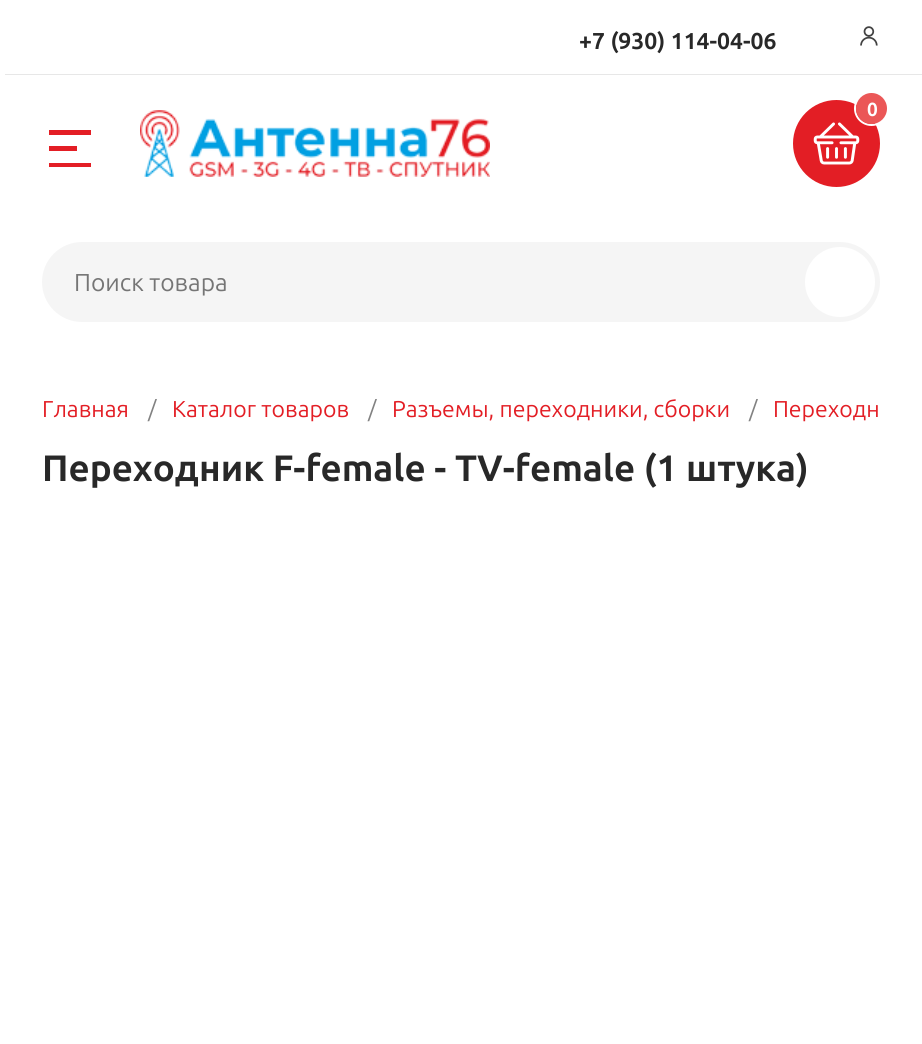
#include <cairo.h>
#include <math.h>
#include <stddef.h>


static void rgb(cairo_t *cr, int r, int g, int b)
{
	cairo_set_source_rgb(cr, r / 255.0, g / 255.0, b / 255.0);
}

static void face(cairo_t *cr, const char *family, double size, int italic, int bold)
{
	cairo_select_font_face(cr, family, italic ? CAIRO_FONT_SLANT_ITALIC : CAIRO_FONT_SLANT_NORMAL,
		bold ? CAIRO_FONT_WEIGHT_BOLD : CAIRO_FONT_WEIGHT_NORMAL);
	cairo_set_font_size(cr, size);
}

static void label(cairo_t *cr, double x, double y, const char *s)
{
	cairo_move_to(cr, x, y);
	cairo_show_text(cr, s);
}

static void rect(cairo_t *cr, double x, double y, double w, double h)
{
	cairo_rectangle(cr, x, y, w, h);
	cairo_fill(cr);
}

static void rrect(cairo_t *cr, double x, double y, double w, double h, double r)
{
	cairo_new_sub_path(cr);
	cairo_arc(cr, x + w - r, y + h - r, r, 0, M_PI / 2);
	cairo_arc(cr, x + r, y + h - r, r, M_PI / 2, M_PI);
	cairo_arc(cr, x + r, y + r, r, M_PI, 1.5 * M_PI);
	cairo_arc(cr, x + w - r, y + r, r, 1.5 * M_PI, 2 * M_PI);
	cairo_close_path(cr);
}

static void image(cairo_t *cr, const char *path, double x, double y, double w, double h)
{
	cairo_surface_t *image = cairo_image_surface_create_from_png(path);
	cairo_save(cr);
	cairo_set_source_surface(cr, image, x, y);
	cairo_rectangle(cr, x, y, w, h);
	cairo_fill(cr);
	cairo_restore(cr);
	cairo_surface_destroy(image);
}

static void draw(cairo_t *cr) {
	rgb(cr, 255, 255, 255);
	cairo_paint(cr);
	rgb(cr, 231, 231, 231);
	rect(cr, 5, 74, 917, 1);
	face(cr, "Ubuntu", 23, 0, 1);
	rgb(cr, 40, 40, 40);
	label(cr, 579, 49, "+7 (930) 114-04-06");
	image(cr, "image0.png", 860, 26, 18, 20);
	rgb(cr, 227, 30, 37);
	cairo_new_path(cr);
	cairo_move_to(cr, 49, 130);
	cairo_line_to(cr, 91, 130);
	cairo_line_to(cr, 91, 135);
	cairo_line_to(cr, 49, 135);
	cairo_close_path(cr);
	cairo_move_to(cr, 49, 146);
	cairo_line_to(cr, 77, 146);
	cairo_line_to(cr, 77, 151);
	cairo_line_to(cr, 49, 151);
	cairo_close_path(cr);
	cairo_move_to(cr, 49, 163);
	cairo_line_to(cr, 91, 163);
	cairo_line_to(cr, 91, 167);
	cairo_line_to(cr, 49, 167);
	cairo_close_path(cr);
	cairo_fill(cr);
	image(cr, "image1.png", 140, 110, 350, 67);
	cairo_arc(cr, 836.5, 143.5, 43.5, 0, 2 * M_PI);
	cairo_fill(cr);
	image(cr, "image2.png", 813, 122, 47, 43);
	cairo_arc(cr, 871.5, 108.5, 16.5, 0, 2 * M_PI);
	rgb(cr, 255, 255, 255);
	cairo_stroke(cr);
	rgb(cr, 235, 87, 87);
	cairo_arc(cr, 871.5, 108.5, 15.5, 0, 2 * M_PI);
	cairo_fill(cr);
	face(cr, "Ubuntu", 19, 0, 1);
	rgb(cr, 255, 255, 255);
	label(cr, 867, 116, "0");
	rgb(cr, 245, 245, 245);
	rrect(cr, 42, 242, 838, 80, 40);
	cairo_fill(cr);
	face(cr, "Ubuntu", 24.5, 0, 0);
	rgb(cr, 117, 117, 117);
	label(cr, 74, 291, "Поиск товара");
	rgb(cr, 255, 255, 255);
	cairo_new_path(cr);
	cairo_arc(cr, 840, 282, 35, 0, 2 * M_PI);
	cairo_fill(cr);
	face(cr, "Ubuntu", 23, 0, 0);
	rgb(cr, 227, 30, 37);
	label(cr, 42, 417, "Главная");
	rgb(cr, 130, 130, 130);
	label(cr, 148, 417, "/");
	rgb(cr, 227, 30, 37);
	label(cr, 172, 417, "Каталог товаров");
	rgb(cr, 130, 130, 130);
	label(cr, 368, 417, "/");
	rgb(cr, 227, 30, 37);
	label(cr, 392, 417, "Разъемы, переходники, сборки");
	rgb(cr, 130, 130, 130);
	label(cr, 749, 417, "/");
	rgb(cr, 227, 30, 37);
	label(cr, 773, 417, "Переходн");
	face(cr, "Ubuntu", 36.75, 0, 1);
	rgb(cr, 40, 40, 40);
	label(cr, 42, 481, "Переходник F-female - TV-female (1 штука)");
}

int main(void) {
	cairo_surface_t *surface = cairo_image_surface_create(CAIRO_FORMAT_RGB24, 922, 1044);
	cairo_t *cr = cairo_create(surface);
	cairo_font_options_t *options = cairo_font_options_create();
	cairo_font_options_set_hint_metrics(options, CAIRO_HINT_METRICS_OFF);
	cairo_font_options_set_hint_style(options, CAIRO_HINT_STYLE_NONE);
	cairo_set_font_options(cr, options);
	cairo_set_miter_limit(cr, 4);
	draw(cr);
	cairo_surface_write_to_png(surface, "render.png");
	cairo_font_options_destroy(options);
	cairo_destroy(cr);
	cairo_surface_destroy(surface);
	return 0;
}
